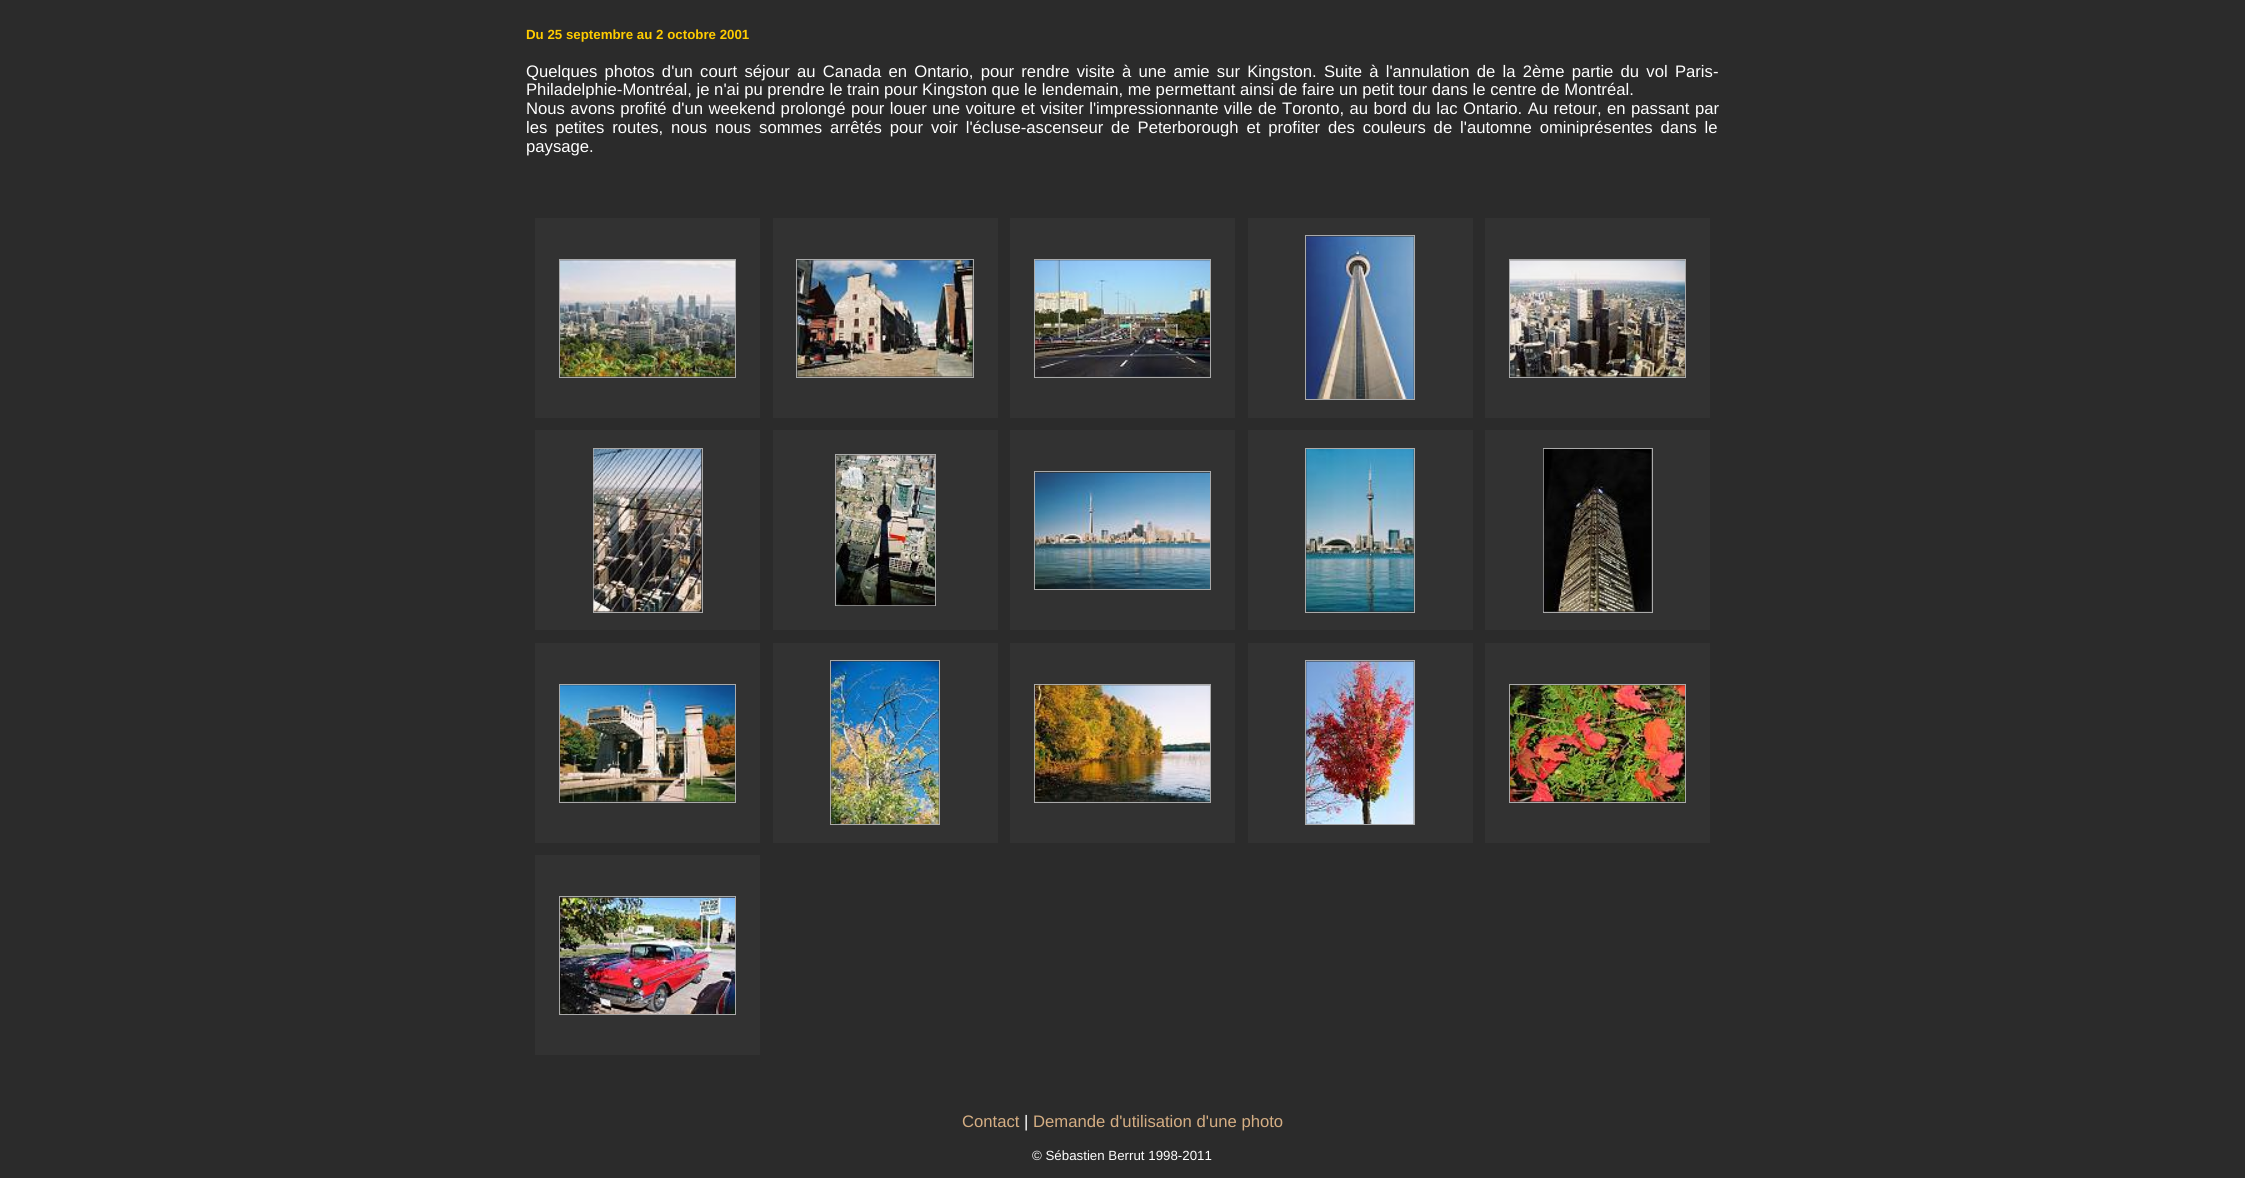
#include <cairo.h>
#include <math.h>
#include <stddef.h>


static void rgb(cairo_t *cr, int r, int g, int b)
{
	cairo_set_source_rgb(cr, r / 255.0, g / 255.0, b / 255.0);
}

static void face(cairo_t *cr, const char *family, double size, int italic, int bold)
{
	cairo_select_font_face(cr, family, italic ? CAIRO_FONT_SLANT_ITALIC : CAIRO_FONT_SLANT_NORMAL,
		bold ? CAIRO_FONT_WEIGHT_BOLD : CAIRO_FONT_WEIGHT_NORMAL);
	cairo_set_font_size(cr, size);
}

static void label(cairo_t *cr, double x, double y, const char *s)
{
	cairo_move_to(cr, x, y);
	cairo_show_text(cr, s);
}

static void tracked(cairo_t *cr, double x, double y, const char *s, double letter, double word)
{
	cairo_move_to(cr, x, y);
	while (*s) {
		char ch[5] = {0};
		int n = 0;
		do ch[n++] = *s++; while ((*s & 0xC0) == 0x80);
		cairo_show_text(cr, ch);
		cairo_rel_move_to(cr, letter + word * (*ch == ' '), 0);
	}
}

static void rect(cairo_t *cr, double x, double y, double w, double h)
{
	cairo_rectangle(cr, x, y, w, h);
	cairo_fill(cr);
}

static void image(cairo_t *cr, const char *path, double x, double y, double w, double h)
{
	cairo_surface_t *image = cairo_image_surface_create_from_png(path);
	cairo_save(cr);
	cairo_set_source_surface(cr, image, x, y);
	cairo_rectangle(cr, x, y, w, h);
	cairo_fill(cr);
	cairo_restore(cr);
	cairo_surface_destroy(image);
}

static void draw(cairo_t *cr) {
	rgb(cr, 43, 43, 43);
	cairo_paint(cr);
	face(cr, "Liberation Sans", 13.3, 0, 1);
	rgb(cr, 255, 204, 0);
	label(cr, 526, 39, "Du 25 septembre au 2 octobre 2001");
	face(cr, "Liberation Sans", 16.67, 0, 0);
	rgb(cr, 255, 255, 255);
	tracked(cr, 526, 77, "Quelques photos d'un court séjour au Canada en Ontario, pour rendre visite à une amie sur Kingston. Suite à l'annulation de la 2ème partie du vol Paris-", 0, 2.6);
	label(cr, 526, 95, "Philadelphie-Montréal, je n'ai pu prendre le train pour Kingston que le lendemain, me permettant ainsi de faire un petit tour dans le centre de Montréal.");
	tracked(cr, 526, 114, "Nous avons profité d'un weekend prolongé pour louer une voiture et visiter l'impressionnante ville de Toronto, au bord du lac Ontario. Au retour, en passant par", 0, 0.8);
	tracked(cr, 526, 133, "les petites routes, nous nous sommes arrêtés pour voir l'écluse-ascenseur de Peterborough et profiter des couleurs de l'automne ominiprésentes dans le", 0, 3.25);
	label(cr, 526, 152, "paysage.");
	rgb(cr, 50, 50, 50);
	rect(cr, 535, 218, 225, 200);
	cairo_rectangle(cr, 559.5, 259.5, 176, 118);
	rgb(cr, 170, 170, 170);
	cairo_set_line_width(cr, 1);
	cairo_stroke(cr);
	image(cr, "image0.png", 560, 260, 175, 117);
	rgb(cr, 50, 50, 50);
	rect(cr, 773, 218, 225, 200);
	cairo_rectangle(cr, 796.5, 259.5, 177, 118);
	rgb(cr, 170, 170, 170);
	cairo_stroke(cr);
	image(cr, "image1.png", 797, 260, 176, 117);
	rgb(cr, 50, 50, 50);
	rect(cr, 1010, 218, 225, 200);
	cairo_rectangle(cr, 1034.5, 259.5, 176, 118);
	rgb(cr, 170, 170, 170);
	cairo_stroke(cr);
	image(cr, "image2.png", 1035, 260, 175, 117);
	rgb(cr, 50, 50, 50);
	rect(cr, 1248, 218, 225, 200);
	cairo_rectangle(cr, 1305.5, 235.5, 109, 164);
	rgb(cr, 170, 170, 170);
	cairo_stroke(cr);
	image(cr, "image3.png", 1306, 236, 108, 163);
	rgb(cr, 50, 50, 50);
	rect(cr, 1485, 218, 225, 200);
	cairo_rectangle(cr, 1509.5, 259.5, 176, 118);
	rgb(cr, 170, 170, 170);
	cairo_stroke(cr);
	image(cr, "image4.png", 1510, 260, 175, 117);
	rgb(cr, 50, 50, 50);
	rect(cr, 535, 430, 225, 200);
	cairo_rectangle(cr, 593.5, 448.5, 109, 164);
	rgb(cr, 170, 170, 170);
	cairo_stroke(cr);
	image(cr, "image5.png", 593, 449, 109, 163);
	rgb(cr, 50, 50, 50);
	rect(cr, 773, 430, 225, 200);
	cairo_rectangle(cr, 835.5, 454.5, 100, 151);
	rgb(cr, 170, 170, 170);
	cairo_stroke(cr);
	image(cr, "image6.png", 836, 455, 99, 151);
	rgb(cr, 50, 50, 50);
	rect(cr, 1010, 430, 225, 200);
	cairo_rectangle(cr, 1034.5, 471.5, 176, 118);
	rgb(cr, 170, 170, 170);
	cairo_stroke(cr);
	image(cr, "image7.png", 1035, 472, 175, 117);
	rgb(cr, 50, 50, 50);
	rect(cr, 1248, 430, 225, 200);
	cairo_rectangle(cr, 1305.5, 448.5, 109, 164);
	rgb(cr, 170, 170, 170);
	cairo_stroke(cr);
	image(cr, "image8.png", 1306, 449, 108, 163);
	rgb(cr, 50, 50, 50);
	rect(cr, 1485, 430, 225, 200);
	cairo_rectangle(cr, 1543.5, 448.5, 109, 164);
	rgb(cr, 170, 170, 170);
	cairo_stroke(cr);
	image(cr, "image9.png", 1543, 449, 109, 163);
	rgb(cr, 50, 50, 50);
	rect(cr, 535, 643, 225, 200);
	cairo_rectangle(cr, 559.5, 684.5, 176, 118);
	rgb(cr, 170, 170, 170);
	cairo_stroke(cr);
	image(cr, "image10.png", 560, 685, 175, 117);
	rgb(cr, 50, 50, 50);
	rect(cr, 773, 643, 225, 200);
	cairo_rectangle(cr, 830.5, 660.5, 109, 164);
	rgb(cr, 170, 170, 170);
	cairo_stroke(cr);
	image(cr, "image11.png", 831, 661, 108, 163);
	rgb(cr, 50, 50, 50);
	rect(cr, 1010, 643, 225, 200);
	cairo_rectangle(cr, 1034.5, 684.5, 176, 118);
	rgb(cr, 170, 170, 170);
	cairo_stroke(cr);
	image(cr, "image12.png", 1035, 685, 175, 117);
	rgb(cr, 50, 50, 50);
	rect(cr, 1248, 643, 225, 200);
	cairo_rectangle(cr, 1305.5, 660.5, 109, 164);
	rgb(cr, 170, 170, 170);
	cairo_stroke(cr);
	image(cr, "image13.png", 1306, 661, 108, 163);
	rgb(cr, 50, 50, 50);
	rect(cr, 1485, 643, 225, 200);
	cairo_rectangle(cr, 1509.5, 684.5, 176, 118);
	rgb(cr, 170, 170, 170);
	cairo_stroke(cr);
	image(cr, "image14.png", 1510, 685, 175, 117);
	rgb(cr, 50, 50, 50);
	rect(cr, 535, 855, 225, 200);
	cairo_rectangle(cr, 559.5, 896.5, 176, 118);
	rgb(cr, 170, 170, 170);
	cairo_stroke(cr);
	image(cr, "image15.png", 560, 897, 175, 117);
	rgb(cr, 213, 174, 131);
	label(cr, 962, 1127, "Contact");
	rgb(cr, 255, 255, 255);
	label(cr, 1024, 1127, "|");
	rgb(cr, 213, 174, 131);
	label(cr, 1033, 1127, "Demande d'utilisation d'une photo");
	face(cr, "Liberation Sans", 13.3, 0, 0);
	rgb(cr, 255, 255, 255);
	label(cr, 1032, 1160, "© Sébastien Berrut 1998-2011");
}

int main(void) {
	cairo_surface_t *surface = cairo_image_surface_create(CAIRO_FORMAT_RGB24, 2245, 1178);
	cairo_t *cr = cairo_create(surface);
	cairo_font_options_t *options = cairo_font_options_create();
	cairo_font_options_set_hint_metrics(options, CAIRO_HINT_METRICS_OFF);
	cairo_font_options_set_hint_style(options, CAIRO_HINT_STYLE_NONE);
	cairo_set_font_options(cr, options);
	cairo_set_miter_limit(cr, 4);
	draw(cr);
	cairo_surface_write_to_png(surface, "render.png");
	cairo_font_options_destroy(options);
	cairo_destroy(cr);
	cairo_surface_destroy(surface);
	return 0;
}
